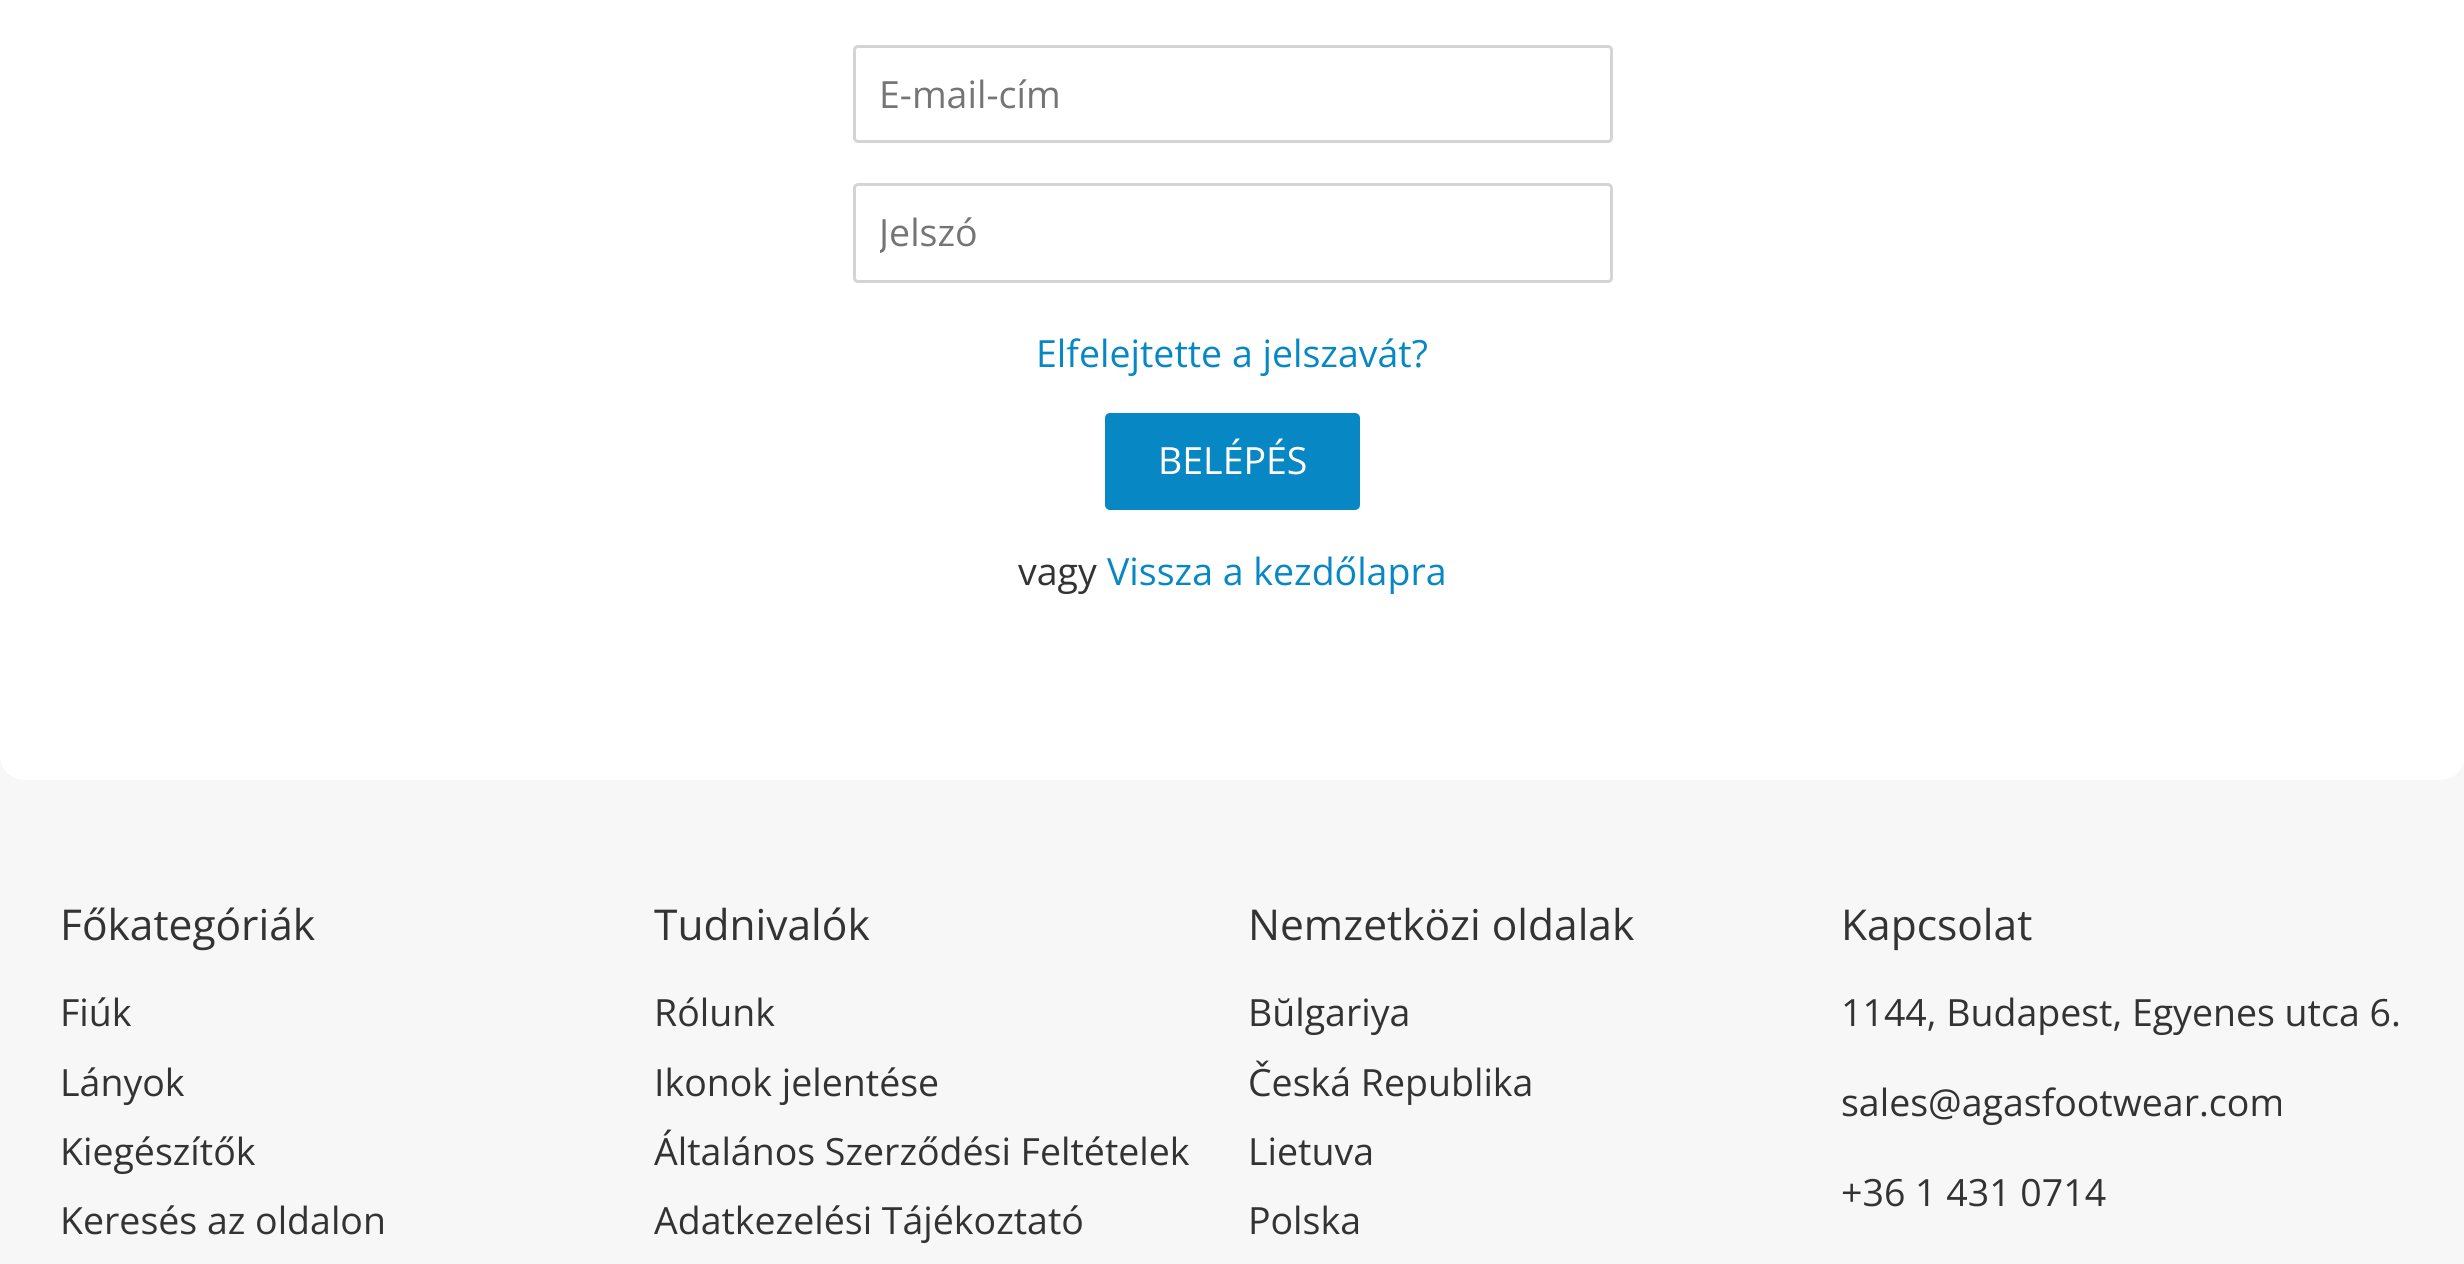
#include <cairo.h>
#include <math.h>
#include <stddef.h>


static void rgb(cairo_t *cr, int r, int g, int b)
{
	cairo_set_source_rgb(cr, r / 255.0, g / 255.0, b / 255.0);
}

static void face(cairo_t *cr, const char *family, double size, int italic, int bold)
{
	cairo_select_font_face(cr, family, italic ? CAIRO_FONT_SLANT_ITALIC : CAIRO_FONT_SLANT_NORMAL,
		bold ? CAIRO_FONT_WEIGHT_BOLD : CAIRO_FONT_WEIGHT_NORMAL);
	cairo_set_font_size(cr, size);
}

static void label(cairo_t *cr, double x, double y, const char *s)
{
	cairo_move_to(cr, x, y);
	cairo_show_text(cr, s);
}

static void rrect(cairo_t *cr, double x, double y, double w, double h, double r)
{
	cairo_new_sub_path(cr);
	cairo_arc(cr, x + w - r, y + h - r, r, 0, M_PI / 2);
	cairo_arc(cr, x + r, y + h - r, r, M_PI / 2, M_PI);
	cairo_arc(cr, x + r, y + r, r, M_PI, 1.5 * M_PI);
	cairo_arc(cr, x + w - r, y + r, r, 1.5 * M_PI, 2 * M_PI);
	cairo_close_path(cr);
}

static void draw(cairo_t *cr) {
	rgb(cr, 247, 247, 247);
	cairo_paint(cr);
	rgb(cr, 255, 255, 255);
	cairo_new_path(cr);
	cairo_move_to(cr, 0, -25);
	cairo_line_to(cr, 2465, -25);
	cairo_line_to(cr, 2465, 755);
	cairo_curve_to(cr, 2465, 769, 2454, 780, 2440, 780);
	cairo_line_to(cr, 25, 780);
	cairo_curve_to(cr, 11, 780, 0, 769, 0, 755);
	cairo_close_path(cr);
	cairo_fill(cr);
	rrect(cr, 854.5, 46.5, 757, 95, 3.5);
	rgb(cr, 212, 212, 212);
	cairo_set_line_width(cr, 3);
	cairo_stroke(cr);
	face(cr, "Open Sans", 37.5, 0, 0);
	rgb(cr, 117, 117, 117);
	label(cr, 879, 108, "E-mail-cím");
	rrect(cr, 854.5, 184.5, 757, 97, 3.5);
	rgb(cr, 212, 212, 212);
	cairo_stroke(cr);
	cairo_save(cr);
	cairo_rectangle(cr, 880, 205, 705, 50);
	cairo_clip(cr);
	rgb(cr, 117, 117, 117);
	label(cr, 879, 246, "Jelszó");
	cairo_restore(cr);
	rgb(cr, 8, 135, 197);
	label(cr, 1036, 367, "Elfelejtette a jelszavát?");
	rrect(cr, 1105, 413, 255, 97, 5);
	cairo_fill(cr);
	rgb(cr, 255, 255, 255);
	label(cr, 1158, 474, "BELÉPÉS");
	rgb(cr, 51, 51, 51);
	label(cr, 1018, 585, "vagy");
	rgb(cr, 8, 135, 197);
	label(cr, 1107, 585, "Vissza a kezdőlapra");
	face(cr, "Open Sans", 42.5, 0, 0);
	rgb(cr, 51, 51, 51);
	label(cr, 60, 940, "Főkategóriák");
	face(cr, "Open Sans", 37.5, 0, 0);
	label(cr, 60, 1026, "Fiúk");
	label(cr, 60, 1096, "Lányok");
	label(cr, 60, 1165, "Kiegészítők");
	label(cr, 60, 1234, "Keresés az oldalon");
	face(cr, "Open Sans", 42.5, 0, 0);
	label(cr, 654, 940, "Tudnivalók");
	face(cr, "Open Sans", 37.5, 0, 0);
	label(cr, 654, 1026, "Rólunk");
	label(cr, 654, 1096, "Ikonok jelentése");
	label(cr, 654, 1165, "Általános Szerződési Feltételek");
	label(cr, 654, 1234, "Adatkezelési Tájékoztató");
	face(cr, "Open Sans", 42.5, 0, 0);
	label(cr, 1248, 940, "Nemzetközi oldalak");
	face(cr, "Open Sans", 37.5, 0, 0);
	label(cr, 1248, 1026, "Bŭlgariya");
	label(cr, 1248, 1096, "Česká Republika");
	label(cr, 1248, 1165, "Lietuva");
	label(cr, 1248, 1234, "Polska");
	face(cr, "Open Sans", 42.5, 0, 0);
	label(cr, 1841, 940, "Kapcsolat");
	face(cr, "Open Sans", 37.5, 0, 0);
	label(cr, 1841, 1026, "1144, Budapest, Egyenes utca 6.");
	label(cr, 1841, 1116, "sales@agasfootwear.com");
	label(cr, 1841, 1206, "+36 1 431 0714");
}

int main(void) {
	cairo_surface_t *surface = cairo_image_surface_create(CAIRO_FORMAT_RGB24, 2464, 1264);
	cairo_t *cr = cairo_create(surface);
	cairo_font_options_t *options = cairo_font_options_create();
	cairo_font_options_set_hint_metrics(options, CAIRO_HINT_METRICS_OFF);
	cairo_font_options_set_hint_style(options, CAIRO_HINT_STYLE_NONE);
	cairo_set_font_options(cr, options);
	cairo_set_miter_limit(cr, 4);
	draw(cr);
	cairo_surface_write_to_png(surface, "render.png");
	cairo_font_options_destroy(options);
	cairo_destroy(cr);
	cairo_surface_destroy(surface);
	return 0;
}
